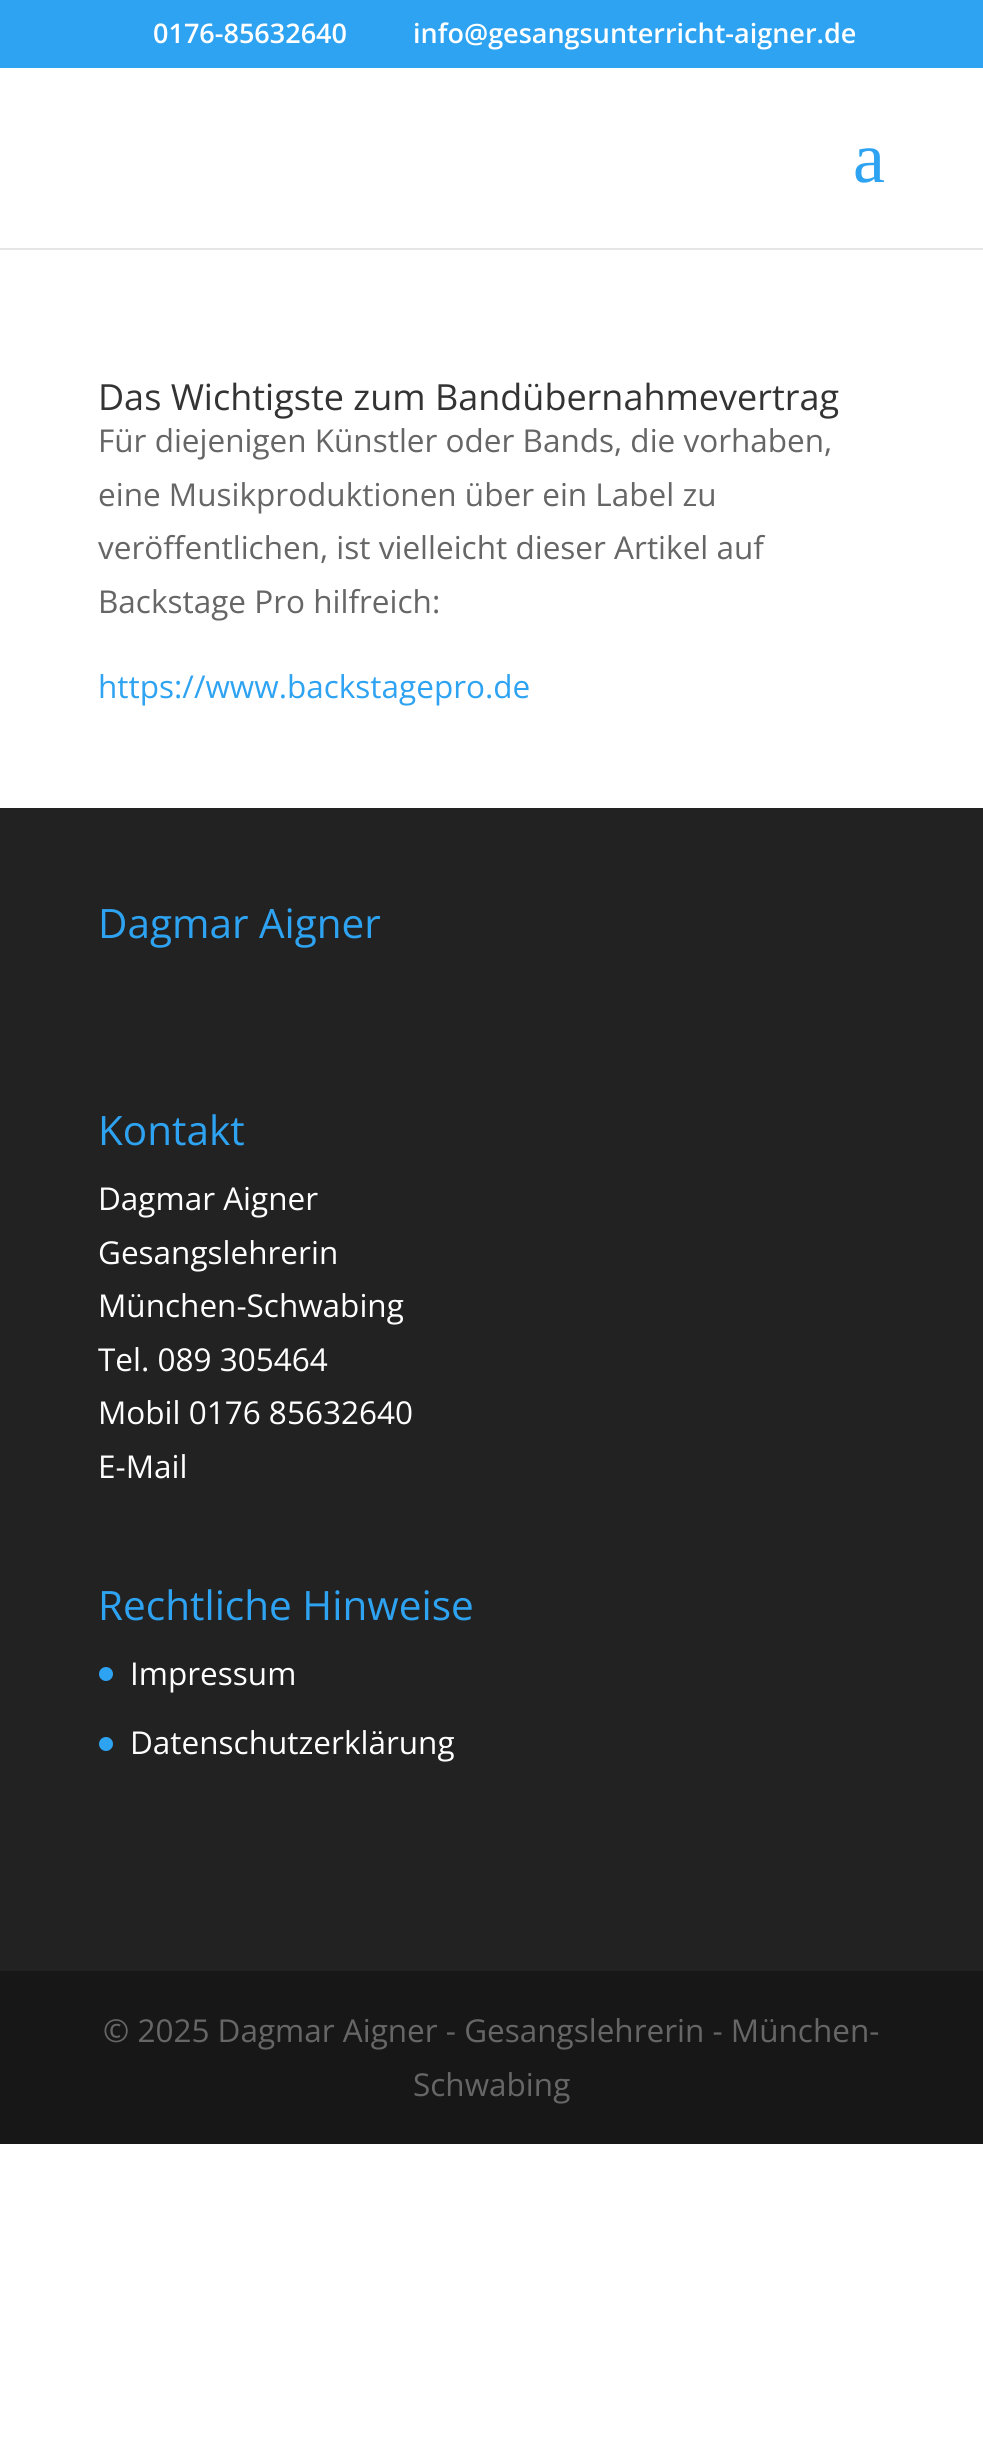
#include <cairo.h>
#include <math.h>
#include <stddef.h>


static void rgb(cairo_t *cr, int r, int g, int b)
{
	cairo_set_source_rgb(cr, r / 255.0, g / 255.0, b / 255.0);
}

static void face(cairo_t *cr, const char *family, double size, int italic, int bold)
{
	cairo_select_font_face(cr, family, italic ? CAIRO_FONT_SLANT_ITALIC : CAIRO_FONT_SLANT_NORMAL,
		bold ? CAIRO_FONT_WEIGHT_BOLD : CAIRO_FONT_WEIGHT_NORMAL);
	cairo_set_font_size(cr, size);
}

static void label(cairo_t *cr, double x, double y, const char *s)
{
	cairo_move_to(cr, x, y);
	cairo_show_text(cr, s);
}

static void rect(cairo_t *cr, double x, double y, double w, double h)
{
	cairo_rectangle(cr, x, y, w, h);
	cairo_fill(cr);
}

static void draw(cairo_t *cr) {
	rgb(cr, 255, 255, 255);
	cairo_paint(cr);
	rgb(cr, 46, 163, 242);
	rect(cr, 0, 0, 983, 68);
	face(cr, "Open Sans SemiBold", 27, 0, 0);
	rgb(cr, 255, 255, 255);
	label(cr, 153, 43, "0176-85632640");
	label(cr, 413, 43, "info@gesangsunterricht-aigner.de");
	rgb(cr, 230, 230, 230);
	rect(cr, 0, 248, 983, 2);
	face(cr, "Liberation Serif", 72, 0, 0);
	rgb(cr, 46, 163, 242);
	label(cr, 853, 182, "a");
	face(cr, "Open Sans", 36, 0, 0);
	rgb(cr, 51, 51, 51);
	label(cr, 98, 410, "Das Wichtigste zum Bandübernahmevertrag");
	face(cr, "Open Sans", 31.5, 0, 0);
	rgb(cr, 102, 102, 102);
	label(cr, 98, 452, "Für diejenigen Künstler oder Bands, die vorhaben,");
	label(cr, 98, 506, "eine Musikproduktionen über ein Label zu");
	label(cr, 98, 559, "veröffentlichen, ist vielleicht dieser Artikel auf");
	label(cr, 98, 613, "Backstage Pro hilfreich:");
	rgb(cr, 46, 163, 242);
	label(cr, 98, 698, "https://www.backstagepro.de");
	rgb(cr, 34, 34, 34);
	rect(cr, 0, 808, 983, 1163);
	face(cr, "Open Sans", 40.5, 0, 0);
	rgb(cr, 46, 163, 242);
	label(cr, 98, 938, "Dagmar Aigner");
	label(cr, 98, 1145, "Kontakt");
	face(cr, "Open Sans", 31.5, 0, 0);
	rgb(cr, 255, 255, 255);
	label(cr, 98, 1210, "Dagmar Aigner");
	label(cr, 98, 1264, "Gesangslehrerin");
	label(cr, 98, 1317, "München-Schwabing");
	label(cr, 98, 1371, "Tel. 089 305464");
	label(cr, 98, 1424, "Mobil 0176 85632640");
	label(cr, 98, 1478, "E-Mail");
	face(cr, "Open Sans", 40.5, 0, 0);
	rgb(cr, 46, 163, 242);
	label(cr, 98, 1620, "Rechtliche Hinweise");
	cairo_new_path(cr);
	cairo_arc(cr, 106, 1674, 7, 0, 2 * M_PI);
	cairo_fill(cr);
	face(cr, "Open Sans", 31.5, 0, 0);
	rgb(cr, 255, 255, 255);
	label(cr, 130, 1685, "Impressum");
	rgb(cr, 46, 163, 242);
	cairo_new_path(cr);
	cairo_arc(cr, 106, 1744, 7, 0, 2 * M_PI);
	cairo_fill(cr);
	rgb(cr, 255, 255, 255);
	label(cr, 130, 1754, "Datenschutzerklärung");
	rgb(cr, 23, 23, 23);
	rect(cr, 0, 1971, 983, 173);
	rgb(cr, 102, 102, 102);
	label(cr, 103, 2042, "© 2025 Dagmar Aigner - Gesangslehrerin - München-");
	label(cr, 413, 2096, "Schwabing");
}

int main(void) {
	cairo_surface_t *surface = cairo_image_surface_create(CAIRO_FORMAT_RGB24, 983, 2458);
	cairo_t *cr = cairo_create(surface);
	cairo_font_options_t *options = cairo_font_options_create();
	cairo_font_options_set_hint_metrics(options, CAIRO_HINT_METRICS_OFF);
	cairo_font_options_set_hint_style(options, CAIRO_HINT_STYLE_NONE);
	cairo_set_font_options(cr, options);
	cairo_set_miter_limit(cr, 4);
	draw(cr);
	cairo_surface_write_to_png(surface, "render.png");
	cairo_font_options_destroy(options);
	cairo_destroy(cr);
	cairo_surface_destroy(surface);
	return 0;
}
